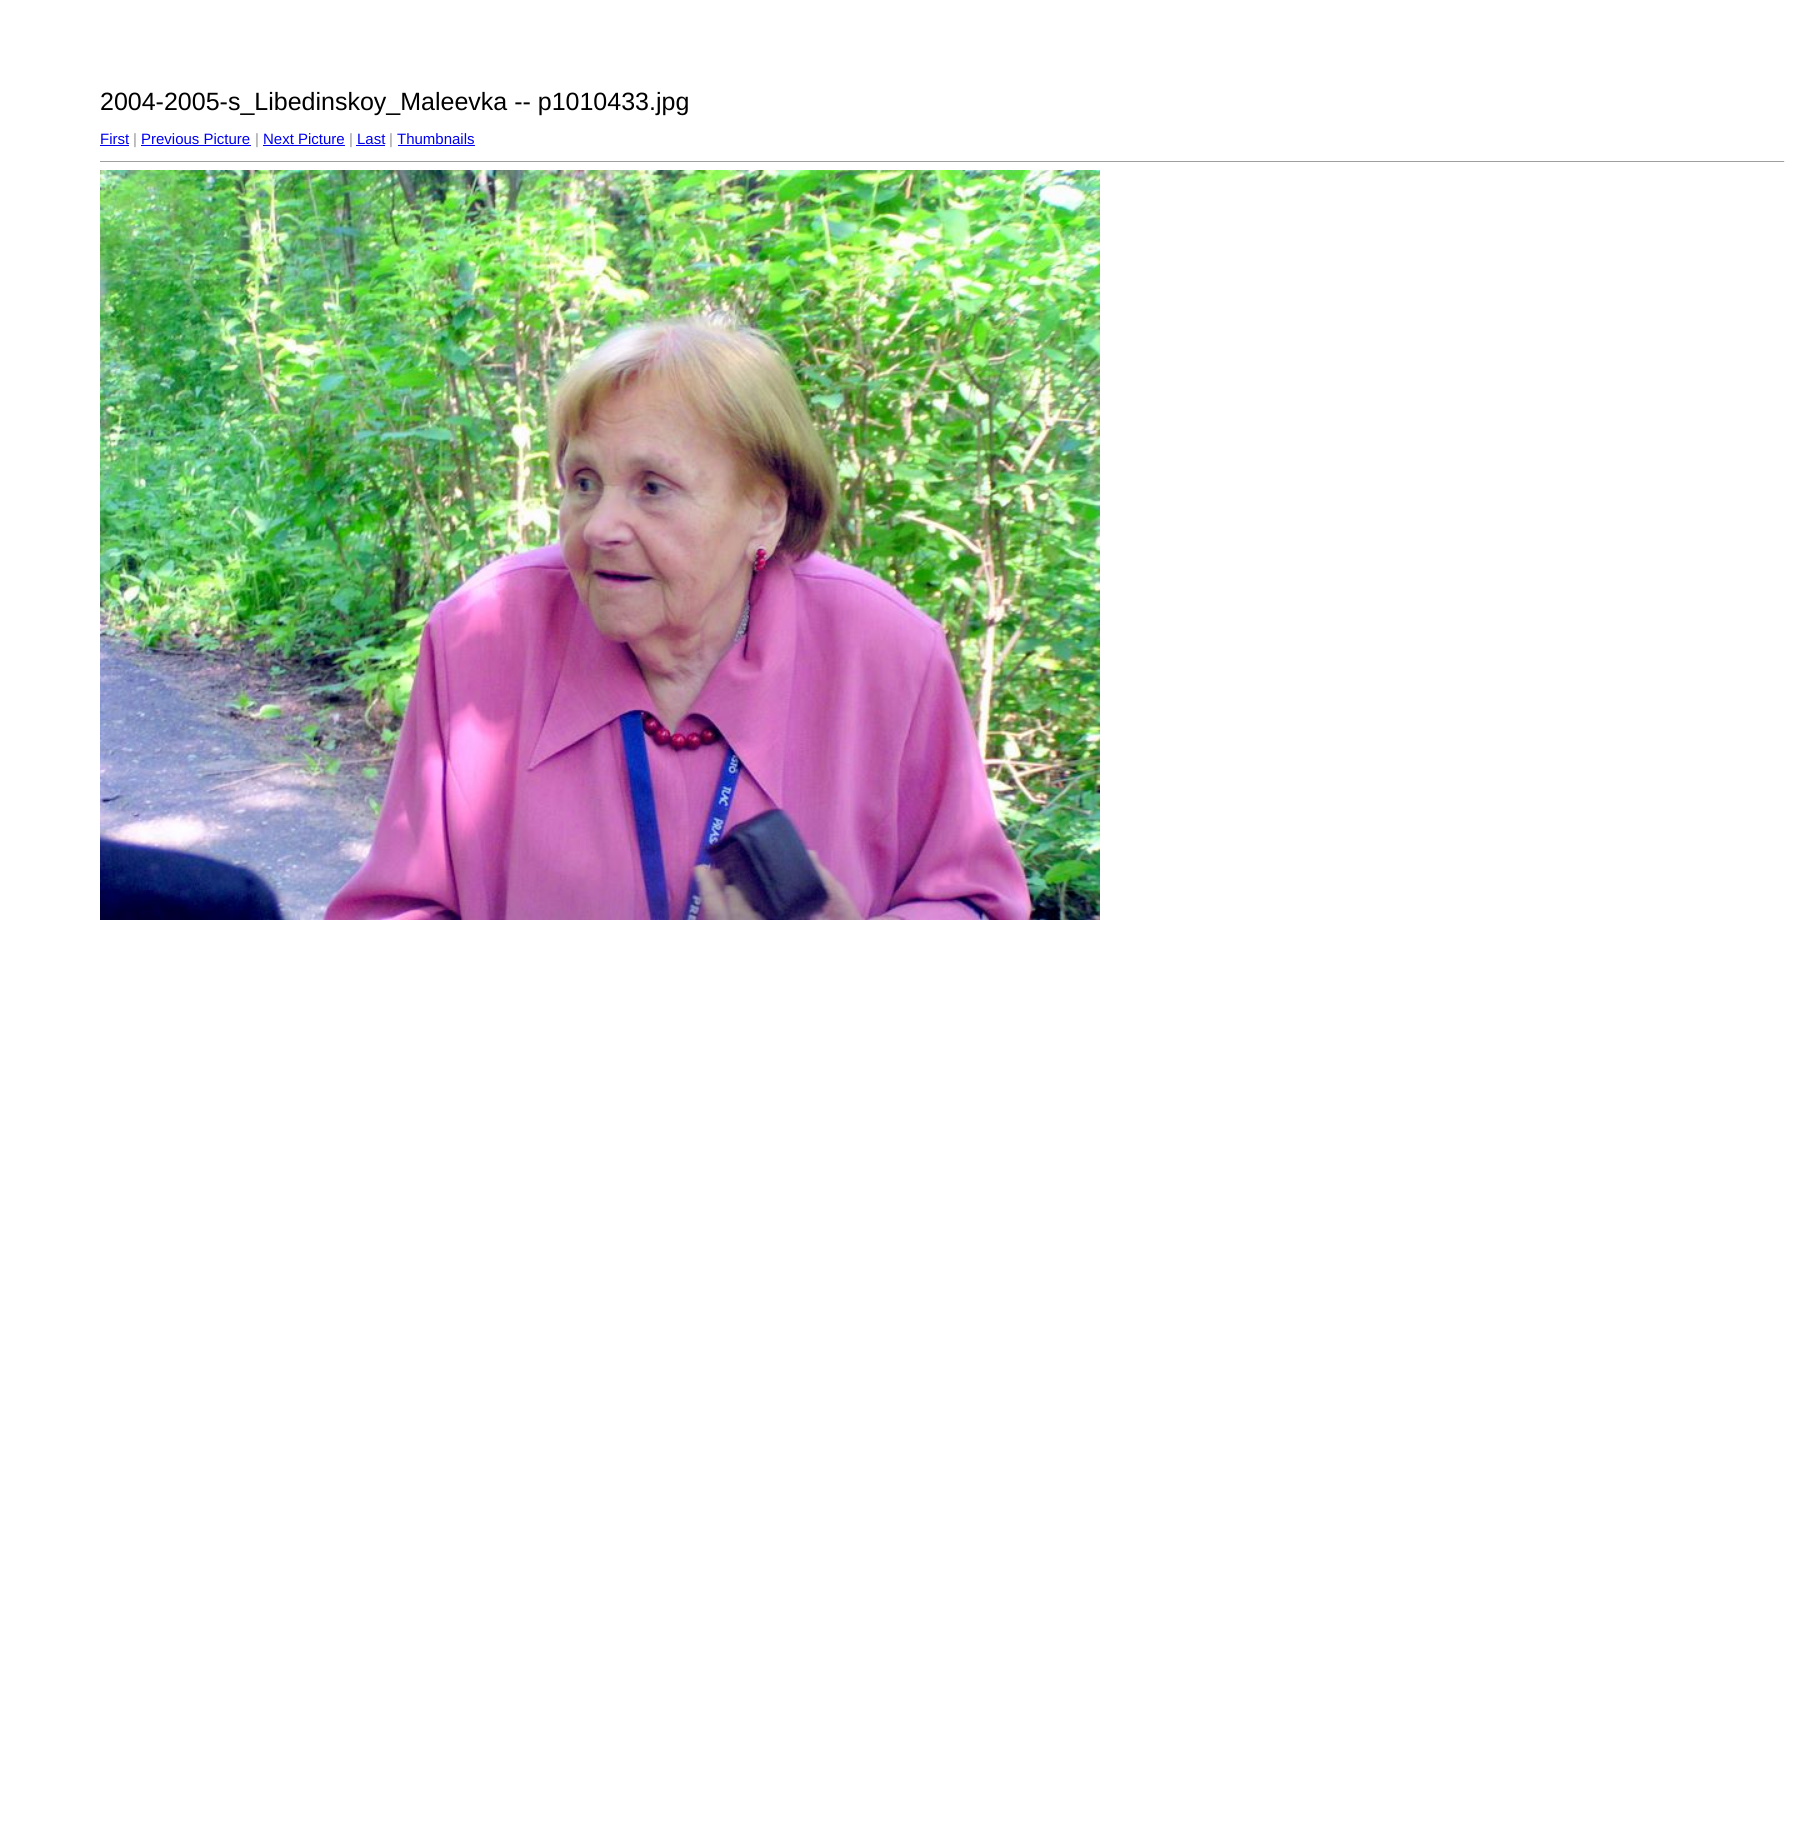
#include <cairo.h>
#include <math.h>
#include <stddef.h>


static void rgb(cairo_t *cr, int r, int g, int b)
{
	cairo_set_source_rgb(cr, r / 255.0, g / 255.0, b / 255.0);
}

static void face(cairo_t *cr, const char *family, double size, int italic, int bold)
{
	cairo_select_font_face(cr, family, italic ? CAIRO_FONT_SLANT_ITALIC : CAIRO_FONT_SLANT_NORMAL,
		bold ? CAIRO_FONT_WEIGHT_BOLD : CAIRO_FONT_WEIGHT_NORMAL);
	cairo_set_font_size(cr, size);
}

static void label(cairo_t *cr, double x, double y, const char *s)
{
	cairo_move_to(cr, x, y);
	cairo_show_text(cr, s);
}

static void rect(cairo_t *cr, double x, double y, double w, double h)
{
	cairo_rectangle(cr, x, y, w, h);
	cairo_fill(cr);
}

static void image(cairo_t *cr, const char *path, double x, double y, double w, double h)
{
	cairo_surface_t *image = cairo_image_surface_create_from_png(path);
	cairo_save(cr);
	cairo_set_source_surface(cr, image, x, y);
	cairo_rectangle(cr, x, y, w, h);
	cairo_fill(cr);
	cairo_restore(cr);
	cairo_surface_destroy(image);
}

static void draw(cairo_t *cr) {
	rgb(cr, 255, 255, 255);
	cairo_paint(cr);
	face(cr, "Liberation Sans", 25, 0, 0);
	rgb(cr, 0, 0, 0);
	label(cr, 100, 110, "2004-2005-s_Libedinskoy_Maleevka -- p1010433.jpg");
	face(cr, "Liberation Sans", 15, 0, 0);
	rgb(cr, 0, 0, 238);
	label(cr, 100, 144, "First");
	rect(cr, 100, 145, 29, 1);
	rgb(cr, 151, 151, 151);
	label(cr, 133, 144, "|");
	rgb(cr, 0, 0, 238);
	label(cr, 141, 144, "Previous Picture");
	rect(cr, 141, 145, 110, 1);
	rgb(cr, 151, 151, 151);
	label(cr, 255, 144, "|");
	rgb(cr, 0, 0, 238);
	label(cr, 263, 144, "Next Picture");
	rect(cr, 263, 145, 82, 1);
	rgb(cr, 151, 151, 151);
	label(cr, 349, 144, "|");
	rgb(cr, 0, 0, 238);
	label(cr, 357, 144, "Last");
	rect(cr, 356, 145, 29, 1);
	rgb(cr, 151, 151, 151);
	label(cr, 389, 144, "|");
	rgb(cr, 0, 0, 238);
	label(cr, 397, 144, "Thumbnails");
	rect(cr, 398, 145, 77, 1);
	rgb(cr, 159, 159, 159);
	rect(cr, 100, 161, 1685, 1);
	rgb(cr, 238, 238, 238);
	rect(cr, 1784, 161, 1, 1);
	image(cr, "image0.png", 100, 170, 1000, 750);
}

int main(void) {
	cairo_surface_t *surface = cairo_image_surface_create(CAIRO_FORMAT_RGB24, 1795, 1832);
	cairo_t *cr = cairo_create(surface);
	cairo_font_options_t *options = cairo_font_options_create();
	cairo_font_options_set_hint_metrics(options, CAIRO_HINT_METRICS_OFF);
	cairo_font_options_set_hint_style(options, CAIRO_HINT_STYLE_NONE);
	cairo_set_font_options(cr, options);
	cairo_set_miter_limit(cr, 4);
	draw(cr);
	cairo_surface_write_to_png(surface, "render.png");
	cairo_font_options_destroy(options);
	cairo_destroy(cr);
	cairo_surface_destroy(surface);
	return 0;
}
